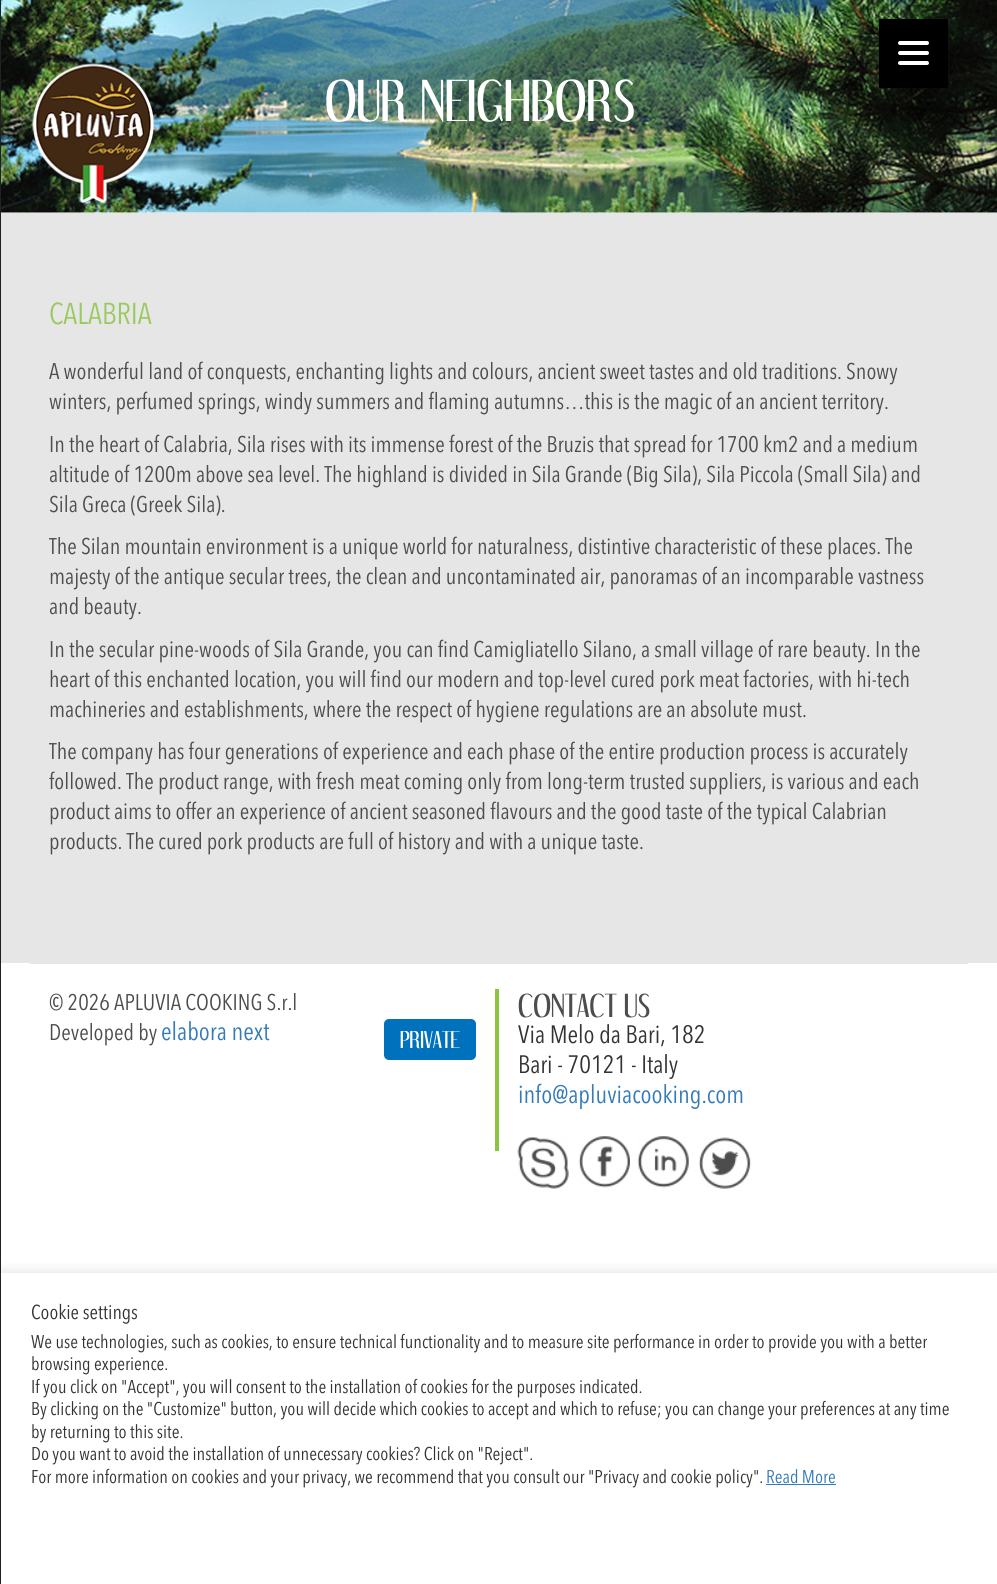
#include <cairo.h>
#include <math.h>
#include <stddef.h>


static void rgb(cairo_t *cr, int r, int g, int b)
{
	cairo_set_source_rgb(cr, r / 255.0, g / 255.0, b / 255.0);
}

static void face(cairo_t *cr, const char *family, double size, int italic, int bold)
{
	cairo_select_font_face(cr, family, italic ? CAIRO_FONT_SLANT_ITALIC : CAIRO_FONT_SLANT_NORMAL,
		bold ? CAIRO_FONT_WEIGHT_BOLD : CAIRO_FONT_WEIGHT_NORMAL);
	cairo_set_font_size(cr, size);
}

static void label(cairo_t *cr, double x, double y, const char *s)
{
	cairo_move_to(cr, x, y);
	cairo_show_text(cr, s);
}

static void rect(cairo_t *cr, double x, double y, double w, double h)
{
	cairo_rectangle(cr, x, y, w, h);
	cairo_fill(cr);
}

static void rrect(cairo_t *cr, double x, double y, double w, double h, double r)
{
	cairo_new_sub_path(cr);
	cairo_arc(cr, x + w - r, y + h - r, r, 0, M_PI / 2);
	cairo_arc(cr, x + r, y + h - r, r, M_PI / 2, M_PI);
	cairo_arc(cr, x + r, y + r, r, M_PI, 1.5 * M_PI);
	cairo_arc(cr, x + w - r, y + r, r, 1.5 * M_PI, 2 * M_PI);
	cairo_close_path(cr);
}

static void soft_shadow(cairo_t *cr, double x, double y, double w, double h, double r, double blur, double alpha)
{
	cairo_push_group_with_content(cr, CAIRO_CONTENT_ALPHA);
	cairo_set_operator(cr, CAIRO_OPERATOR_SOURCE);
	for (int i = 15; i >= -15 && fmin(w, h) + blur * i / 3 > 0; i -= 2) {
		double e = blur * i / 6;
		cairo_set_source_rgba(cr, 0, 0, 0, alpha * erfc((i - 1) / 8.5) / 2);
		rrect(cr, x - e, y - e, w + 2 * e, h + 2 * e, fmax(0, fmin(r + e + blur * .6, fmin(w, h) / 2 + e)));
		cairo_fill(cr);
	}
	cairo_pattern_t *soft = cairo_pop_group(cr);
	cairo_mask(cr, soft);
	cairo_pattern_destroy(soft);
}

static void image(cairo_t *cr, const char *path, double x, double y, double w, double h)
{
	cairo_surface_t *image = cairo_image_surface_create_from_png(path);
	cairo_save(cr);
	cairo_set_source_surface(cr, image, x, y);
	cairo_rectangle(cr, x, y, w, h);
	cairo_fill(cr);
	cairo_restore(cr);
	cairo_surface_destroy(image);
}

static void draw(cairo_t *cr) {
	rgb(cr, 255, 255, 255);
	cairo_paint(cr);
	cairo_save(cr);
	cairo_rectangle(cr, 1, 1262, 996, 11);
	cairo_clip(cr);
	rgb(cr, 172, 171, 171);
	soft_shadow(cr, 0, 1271, 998, 313, 0, 6, 0.3);
	cairo_restore(cr);
	rgb(cr, 33, 33, 33);
	rect(cr, 0, 0, 1, 1584);
	image(cr, "image1.png", 1, 0, 996, 213);
	rgb(cr, 0, 0, 0);
	rect(cr, 879, 19, 69, 69);
	rgb(cr, 255, 255, 255);
	rrect(cr, 898, 51, 31, 4, 2);
	cairo_fill(cr);
	rrect(cr, 898, 41, 31, 4, 2);
	cairo_fill(cr);
	rrect(cr, 898, 61, 31, 4, 2);
	cairo_fill(cr);
	image(cr, "image0.png", 32, 63, 122, 140);
	face(cr, "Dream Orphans", 48.75, 0, 0);
	label(cr, 325, 121, "OUR NEIGHBORS");
	rgb(cr, 230, 230, 230);
	rect(cr, 1, 213, 996, 750);
	face(cr, "Avenir Next", 30, 0, 0);
	rgb(cr, 154, 202, 95);
	label(cr, 49, 324, "CALABRIA");
	face(cr, "Avenir Next", 22.5, 0, 0);
	rgb(cr, 77, 77, 77);
	label(cr, 49, 379, "A wonderful land of conquests, enchanting lights and colours, ancient sweet tastes and old traditions. Snowy");
	label(cr, 49, 409, "winters, perfumed springs, windy summers and flaming autumns…this is the magic of an ancient territory.");
	label(cr, 49, 452, "In the heart of Calabria, Sila rises with its immense forest of the Bruzis that spread for 1700 km2 and a medium");
	label(cr, 49, 482, "altitude of 1200m above sea level. The highland is divided in Sila Grande (Big Sila), Sila Piccola (Small Sila) and");
	label(cr, 49, 512, "Sila Greca (Greek Sila).");
	label(cr, 49, 554, "The Silan mountain environment is a unique world for naturalness, distintive characteristic of these places. The");
	label(cr, 49, 584, "majesty of the antique secular trees, the clean and uncontaminated air, panoramas of an incomparable vastness");
	label(cr, 49, 614, "and beauty.");
	label(cr, 49, 657, "In the secular pine-woods of Sila Grande, you can find Camigliatello Silano, a small village of rare beauty. In the");
	label(cr, 49, 687, "heart of this enchanted location, you will find our modern and top-level cured pork meat factories, with hi-tech");
	label(cr, 49, 717, "machineries and establishments, where the respect of hygiene regulations are an absolute must.");
	label(cr, 49, 759, "The company has four generations of experience and each phase of the entire production process is accurately");
	label(cr, 49, 789, "followed. The product range, with fresh meat coming only from long-term trusted suppliers, is various and each");
	label(cr, 49, 819, "product aims to offer an experience of ancient seasoned flavours and the good taste of the typical Calabrian");
	label(cr, 49, 849, "products. The cured pork products are full of history and with a unique taste.");
	rgb(cr, 230, 230, 230);
	rect(cr, 30, 963, 938, 1);
	rgb(cr, 140, 198, 63);
	rect(cr, 495, 989, 4, 162);
	rgb(cr, 77, 77, 77);
	label(cr, 49, 1010, "© 2026 APLUVIA COOKING S.r.l");
	label(cr, 49, 1040, "Developed by");
	face(cr, "Avenir Next", 25, 0, 0);
	rgb(cr, 51, 122, 183);
	label(cr, 161, 1040, "elabora next");
	rgb(cr, 0, 113, 188);
	rrect(cr, 384, 1019, 92, 41, 5);
	cairo_fill(cr);
	face(cr, "Dream Orphans", 20, 0, 0);
	rgb(cr, 255, 255, 255);
	label(cr, 400, 1048, "PRIVATE");
	face(cr, "Dream Orphans", 27.5, 0, 0);
	rgb(cr, 77, 77, 77);
	label(cr, 518, 1017, "CONTACT US");
	face(cr, "Avenir Next", 25, 0, 0);
	rgb(cr, 51, 51, 51);
	label(cr, 518, 1043, "Via Melo da Bari, 182");
	label(cr, 518, 1073, "Bari - 70121 - Italy");
	rgb(cr, 51, 122, 183);
	label(cr, 518, 1103, "info@apluviacooking.com");
	image(cr, "image2.png", 517, 1137, 52, 52);
	image(cr, "image3.png", 578, 1136, 52, 52);
	image(cr, "image4.png", 637, 1136, 52, 52);
	image(cr, "image5.png", 698, 1137, 53, 52);
	face(cr, "Avenir Next", 20, 0, 0);
	rgb(cr, 51, 51, 51);
	label(cr, 31, 1319, "Cookie settings");
	face(cr, "Avenir Next", 18.33, 0, 0);
	label(cr, 31, 1348, "We use technologies, such as cookies, to ensure technical functionality and to measure site performance in order to provide you with a better");
	label(cr, 31, 1370, "browsing experience.");
	label(cr, 31, 1393, "If you click on \"Accept\", you will consent to the installation of cookies for the purposes indicated.");
	label(cr, 31, 1415, "By clicking on the \"Customize\" button, you will decide which cookies to accept and which to refuse; you can change your preferences at any time");
	label(cr, 31, 1438, "by returning to this site.");
	label(cr, 31, 1460, "Do you want to avoid the installation of unnecessary cookies? Click on \"Reject\".");
	label(cr, 31, 1483, "For more information on cookies and your privacy, we recommend that you consult our \"Privacy and cookie policy\".");
	rgb(cr, 51, 122, 183);
	label(cr, 766, 1483, "Read More");
	rect(cr, 766, 1484, 70, 1);
}

int main(void) {
	cairo_surface_t *surface = cairo_image_surface_create(CAIRO_FORMAT_RGB24, 997, 1584);
	cairo_t *cr = cairo_create(surface);
	cairo_font_options_t *options = cairo_font_options_create();
	cairo_font_options_set_hint_metrics(options, CAIRO_HINT_METRICS_OFF);
	cairo_font_options_set_hint_style(options, CAIRO_HINT_STYLE_NONE);
	cairo_set_font_options(cr, options);
	cairo_set_miter_limit(cr, 4);
	draw(cr);
	cairo_surface_write_to_png(surface, "render.png");
	cairo_font_options_destroy(options);
	cairo_destroy(cr);
	cairo_surface_destroy(surface);
	return 0;
}
